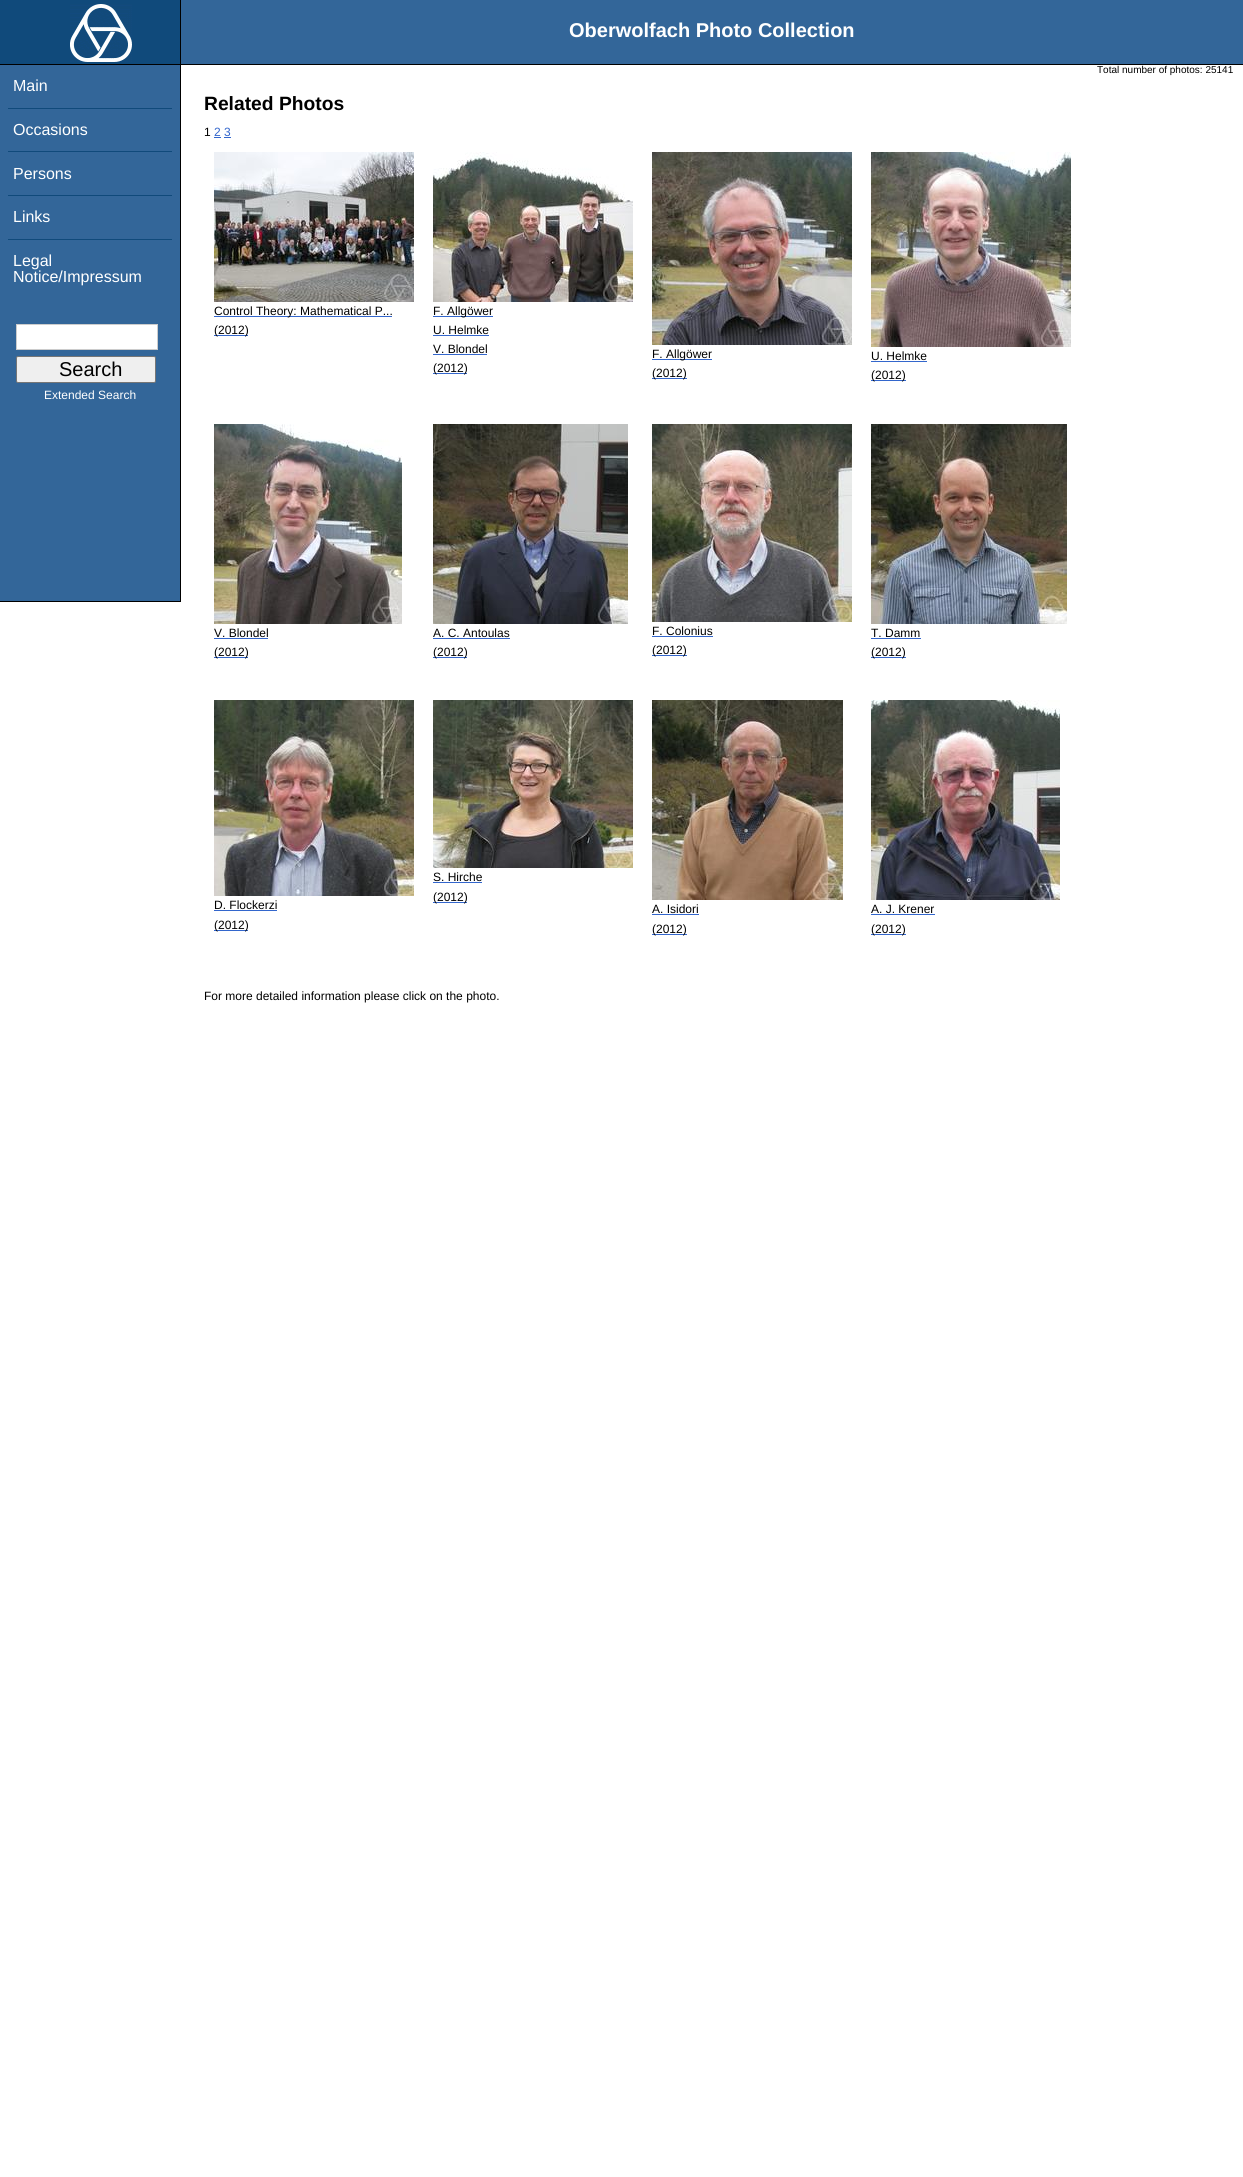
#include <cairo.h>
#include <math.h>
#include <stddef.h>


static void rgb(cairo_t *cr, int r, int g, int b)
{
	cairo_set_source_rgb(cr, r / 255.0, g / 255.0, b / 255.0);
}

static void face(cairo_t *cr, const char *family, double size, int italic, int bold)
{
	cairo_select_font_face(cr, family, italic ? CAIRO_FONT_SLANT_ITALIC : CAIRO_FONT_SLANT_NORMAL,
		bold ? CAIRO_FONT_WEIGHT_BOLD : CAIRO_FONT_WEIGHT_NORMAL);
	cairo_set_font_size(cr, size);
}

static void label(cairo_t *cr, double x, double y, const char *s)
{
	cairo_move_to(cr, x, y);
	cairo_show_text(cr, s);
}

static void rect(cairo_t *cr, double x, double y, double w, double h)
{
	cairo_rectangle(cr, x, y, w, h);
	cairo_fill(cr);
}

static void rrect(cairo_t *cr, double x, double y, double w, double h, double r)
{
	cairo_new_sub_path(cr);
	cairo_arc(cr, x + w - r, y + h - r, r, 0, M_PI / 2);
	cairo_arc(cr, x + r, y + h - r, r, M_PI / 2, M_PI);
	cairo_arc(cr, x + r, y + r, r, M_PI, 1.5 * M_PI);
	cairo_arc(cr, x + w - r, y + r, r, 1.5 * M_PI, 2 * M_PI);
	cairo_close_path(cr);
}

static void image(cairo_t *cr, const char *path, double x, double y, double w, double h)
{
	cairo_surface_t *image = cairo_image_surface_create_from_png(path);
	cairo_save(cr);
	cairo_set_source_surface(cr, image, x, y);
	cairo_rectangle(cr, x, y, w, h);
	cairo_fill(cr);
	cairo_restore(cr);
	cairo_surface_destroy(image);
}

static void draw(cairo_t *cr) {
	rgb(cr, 255, 255, 255);
	cairo_paint(cr);
	rgb(cr, 51, 102, 153);
	rect(cr, 181, 0, 1062, 64);
	rgb(cr, 0, 0, 0);
	rect(cr, 0, 64, 1243, 1);
	rgb(cr, 16, 74, 123);
	rect(cr, 0, 0, 180, 64);
	rgb(cr, 0, 0, 0);
	rect(cr, 180, 0, 1, 64);
	image(cr, "image0.png", 70, 4, 62, 58);
	face(cr, "Liberation Sans", 20, 0, 1);
	rgb(cr, 255, 255, 255);
	label(cr, 569, 37, "Oberwolfach Photo Collection");
	face(cr, "Liberation Sans", 10, 0, 0);
	rgb(cr, 0, 0, 0);
	label(cr, 1097, 73, "Total number of photos: 25141");
	rgb(cr, 51, 102, 153);
	rect(cr, 0, 65, 180, 536);
	rgb(cr, 0, 0, 0);
	rect(cr, 180, 65, 1, 537);
	rect(cr, 0, 601, 181, 1);
	face(cr, "Liberation Sans", 16, 0, 0);
	rgb(cr, 255, 255, 255);
	label(cr, 13, 91, "Main");
	rgb(cr, 16, 74, 123);
	rect(cr, 8, 108, 164, 1);
	rgb(cr, 255, 255, 255);
	label(cr, 13, 135, "Occasions");
	rgb(cr, 16, 74, 123);
	rect(cr, 8, 151, 164, 1);
	rgb(cr, 255, 255, 255);
	label(cr, 13, 179, "Persons");
	rgb(cr, 16, 74, 123);
	rect(cr, 8, 195, 164, 1);
	rgb(cr, 255, 255, 255);
	label(cr, 13, 222, "Links");
	rgb(cr, 16, 74, 123);
	rect(cr, 8, 239, 164, 1);
	rgb(cr, 255, 255, 255);
	label(cr, 13, 266, "Legal");
	label(cr, 13, 282, "Notice/Impressum");
	cairo_rectangle(cr, 16.5, 324.5, 141, 25);
	cairo_fill_preserve(cr);
	rgb(cr, 204, 204, 204);
	cairo_set_line_width(cr, 1);
	cairo_stroke(cr);
	rgb(cr, 239, 239, 239);
	rrect(cr, 16.5, 356.5, 139, 26, 1.5);
	cairo_fill_preserve(cr);
	rgb(cr, 118, 118, 118);
	cairo_stroke(cr);
	face(cr, "Liberation Sans", 20, 0, 0);
	rgb(cr, 0, 0, 0);
	label(cr, 59, 376, "Search");
	face(cr, "Liberation Sans", 12, 0, 0);
	rgb(cr, 255, 255, 255);
	label(cr, 44, 399, "Extended Search");
	face(cr, "Liberation Sans", 19.25, 0, 1);
	rgb(cr, 0, 0, 0);
	label(cr, 204, 110, "Related Photos");
	face(cr, "Liberation Sans", 12, 0, 0);
	label(cr, 204, 136, "1");
	rgb(cr, 51, 102, 204);
	label(cr, 214, 136, "2 3");
	rect(cr, 214, 137, 7, 1);
	rect(cr, 224, 137, 7, 1);
	image(cr, "image1.png", 214, 152, 200, 150);
	rect(cr, 214, 316, 178, 1);
	rgb(cr, 0, 0, 0);
	label(cr, 214, 315, "Control Theory: Mathematical P...");
	rgb(cr, 51, 102, 204);
	rect(cr, 214, 335, 34, 1);
	rgb(cr, 0, 0, 0);
	label(cr, 214, 334, "(2012)");
	image(cr, "image2.png", 433, 152, 200, 150);
	rgb(cr, 51, 102, 204);
	rect(cr, 433, 316, 60, 1);
	rgb(cr, 0, 0, 0);
	label(cr, 433, 315, "F. Allgöwer");
	label(cr, 433, 334, "U. Helmke");
	rgb(cr, 51, 102, 204);
	rect(cr, 433, 335, 56, 1);
	rgb(cr, 0, 0, 0);
	label(cr, 433, 353, "V. Blondel");
	rgb(cr, 51, 102, 204);
	rect(cr, 433, 354, 54, 1);
	rect(cr, 433, 373, 34, 1);
	rgb(cr, 0, 0, 0);
	label(cr, 433, 372, "(2012)");
	image(cr, "image3.png", 652, 152, 200, 193);
	rgb(cr, 51, 102, 204);
	rect(cr, 652, 359, 60, 1);
	rgb(cr, 0, 0, 0);
	label(cr, 652, 358, "F. Allgöwer");
	rgb(cr, 51, 102, 204);
	rect(cr, 652, 378, 35, 1);
	rgb(cr, 0, 0, 0);
	label(cr, 652, 377, "(2012)");
	image(cr, "image4.png", 871, 152, 200, 195);
	label(cr, 871, 360, "U. Helmke");
	rgb(cr, 51, 102, 204);
	rect(cr, 871, 361, 56, 1);
	rect(cr, 871, 380, 35, 1);
	rgb(cr, 0, 0, 0);
	label(cr, 871, 379, "(2012)");
	image(cr, "image5.png", 214, 424, 188, 200);
	label(cr, 214, 637, "V. Blondel");
	rgb(cr, 51, 102, 204);
	rect(cr, 214, 638, 54, 1);
	rect(cr, 214, 657, 34, 1);
	rgb(cr, 0, 0, 0);
	label(cr, 214, 656, "(2012)");
	image(cr, "image6.png", 433, 424, 195, 200);
	label(cr, 433, 637, "A. C. Antoulas");
	rgb(cr, 51, 102, 204);
	rect(cr, 433, 638, 77, 1);
	rect(cr, 433, 657, 34, 1);
	rgb(cr, 0, 0, 0);
	label(cr, 433, 656, "(2012)");
	image(cr, "image7.png", 652, 424, 200, 198);
	label(cr, 652, 635, "F. Colonius");
	rgb(cr, 51, 102, 204);
	rect(cr, 652, 636, 61, 1);
	rect(cr, 652, 655, 35, 1);
	rgb(cr, 0, 0, 0);
	label(cr, 652, 654, "(2012)");
	image(cr, "image8.png", 871, 424, 196, 200);
	label(cr, 871, 637, "T. Damm");
	rgb(cr, 51, 102, 204);
	rect(cr, 871, 638, 50, 1);
	rect(cr, 871, 657, 35, 1);
	rgb(cr, 0, 0, 0);
	label(cr, 871, 656, "(2012)");
	image(cr, "image9.png", 433, 700, 200, 168);
	label(cr, 433, 881, "S. Hirche");
	rgb(cr, 51, 102, 204);
	rect(cr, 433, 882, 49, 1);
	rect(cr, 433, 902, 34, 1);
	rgb(cr, 0, 0, 0);
	label(cr, 433, 901, "(2012)");
	image(cr, "image10.png", 214, 700, 200, 196);
	label(cr, 214, 909, "D. Flockerzi");
	rgb(cr, 51, 102, 204);
	rect(cr, 214, 910, 63, 1);
	rect(cr, 214, 930, 34, 1);
	rgb(cr, 0, 0, 0);
	label(cr, 214, 929, "(2012)");
	image(cr, "image11.png", 652, 700, 191, 200);
	label(cr, 652, 913, "A. Isidori");
	rgb(cr, 51, 102, 204);
	rect(cr, 652, 914, 47, 1);
	rect(cr, 652, 934, 35, 1);
	rgb(cr, 0, 0, 0);
	label(cr, 652, 933, "(2012)");
	image(cr, "image12.png", 871, 700, 189, 200);
	label(cr, 871, 913, "A. J. Krener");
	rgb(cr, 51, 102, 204);
	rect(cr, 871, 914, 64, 1);
	rect(cr, 871, 934, 35, 1);
	rgb(cr, 0, 0, 0);
	label(cr, 871, 933, "(2012)");
	label(cr, 204, 1000, "For more detailed information please click on the photo.");
}

int main(void) {
	cairo_surface_t *surface = cairo_image_surface_create(CAIRO_FORMAT_RGB24, 1243, 2177);
	cairo_t *cr = cairo_create(surface);
	cairo_font_options_t *options = cairo_font_options_create();
	cairo_font_options_set_hint_metrics(options, CAIRO_HINT_METRICS_OFF);
	cairo_font_options_set_hint_style(options, CAIRO_HINT_STYLE_NONE);
	cairo_set_font_options(cr, options);
	cairo_set_miter_limit(cr, 4);
	draw(cr);
	cairo_surface_write_to_png(surface, "render.png");
	cairo_font_options_destroy(options);
	cairo_destroy(cr);
	cairo_surface_destroy(surface);
	return 0;
}
